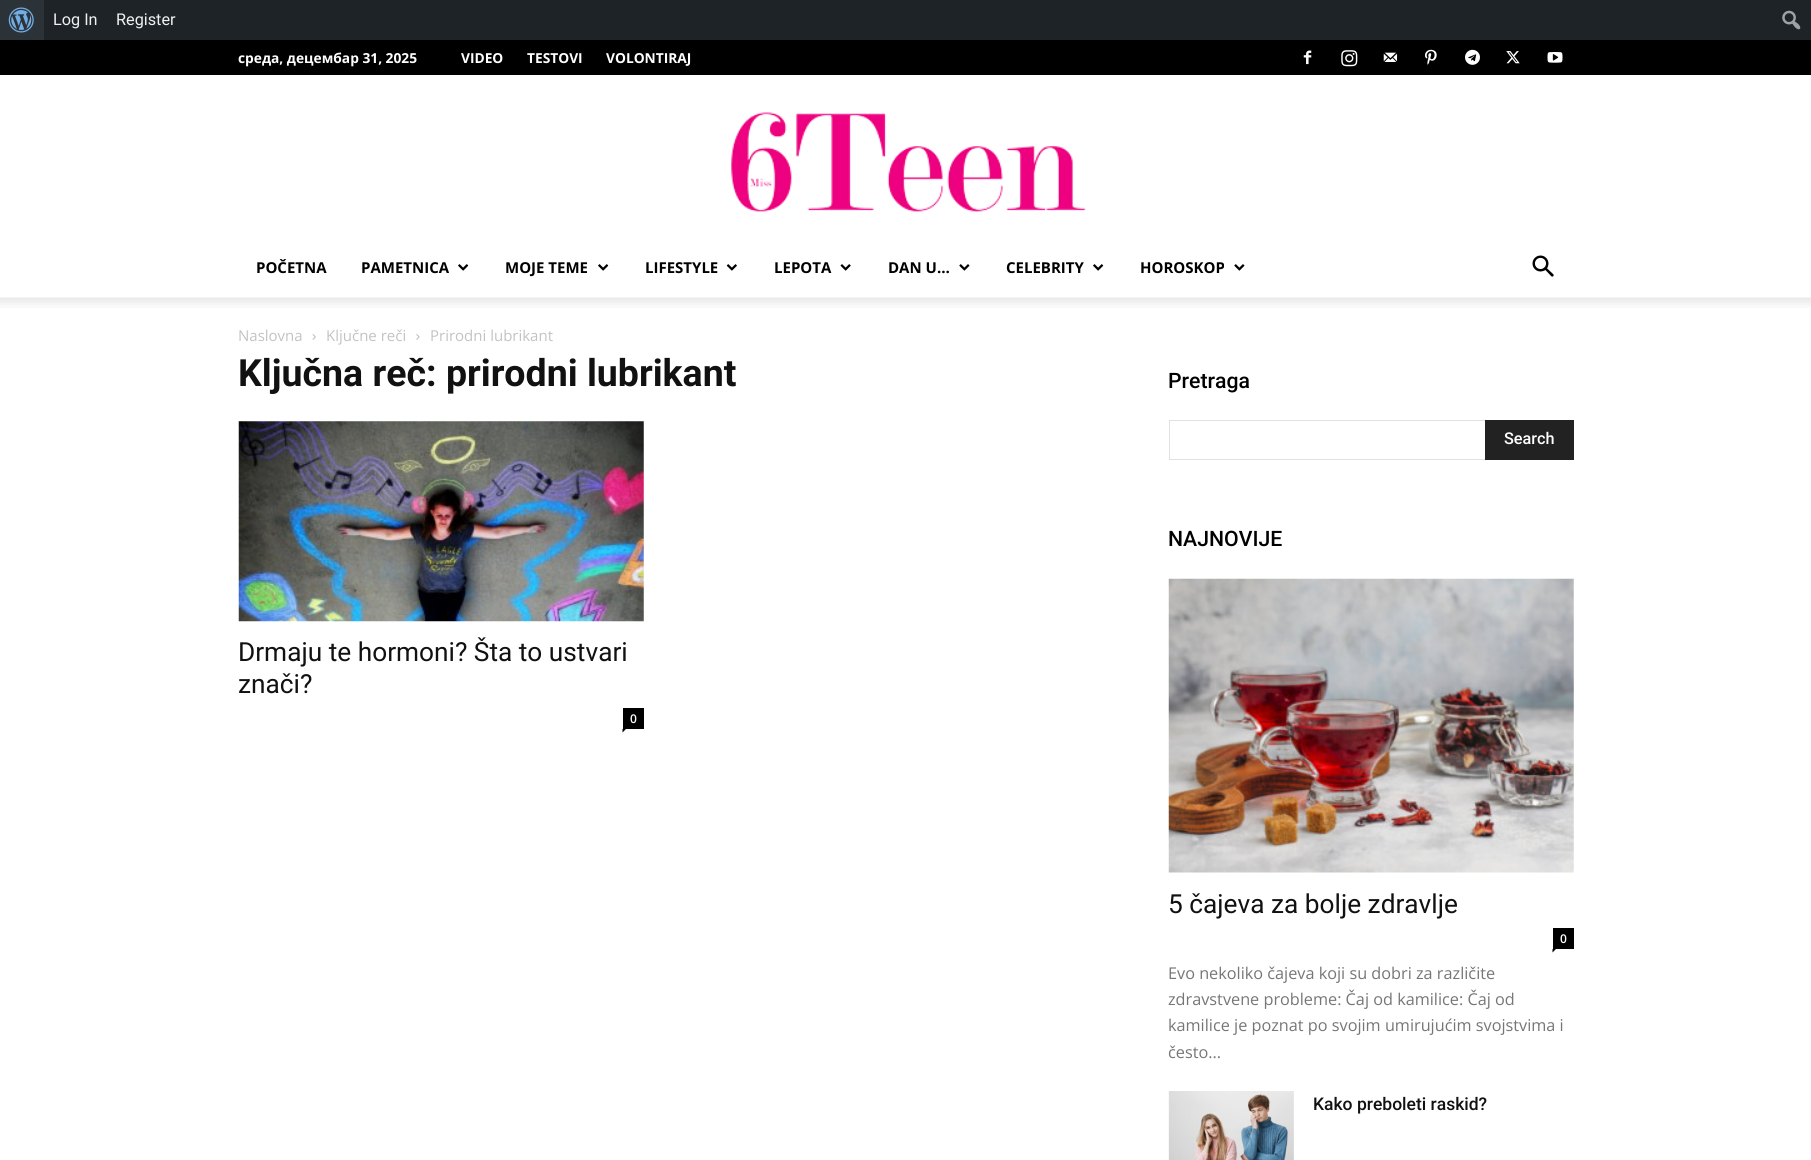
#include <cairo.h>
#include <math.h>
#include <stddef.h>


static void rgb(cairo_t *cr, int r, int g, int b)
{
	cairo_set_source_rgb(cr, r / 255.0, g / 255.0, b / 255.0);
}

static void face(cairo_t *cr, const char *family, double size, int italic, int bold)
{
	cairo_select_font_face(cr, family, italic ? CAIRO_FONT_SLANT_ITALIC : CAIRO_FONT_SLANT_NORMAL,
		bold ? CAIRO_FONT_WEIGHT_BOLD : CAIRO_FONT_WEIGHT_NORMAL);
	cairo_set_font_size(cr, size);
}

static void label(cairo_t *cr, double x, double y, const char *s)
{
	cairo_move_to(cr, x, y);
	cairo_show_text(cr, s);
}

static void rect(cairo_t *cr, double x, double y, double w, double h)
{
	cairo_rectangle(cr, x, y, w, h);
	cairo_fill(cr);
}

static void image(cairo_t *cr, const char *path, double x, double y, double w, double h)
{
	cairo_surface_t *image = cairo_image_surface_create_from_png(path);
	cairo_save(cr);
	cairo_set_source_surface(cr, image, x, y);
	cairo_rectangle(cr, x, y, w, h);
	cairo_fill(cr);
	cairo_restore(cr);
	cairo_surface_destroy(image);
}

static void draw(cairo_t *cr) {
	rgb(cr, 255, 255, 255);
	cairo_paint(cr);
	rgb(cr, 29, 35, 39);
	rect(cr, 44, 0, 1767, 40);
	rgb(cr, 44, 51, 56);
	rect(cr, 0, 0, 44, 40);
	image(cr, "image0.png", 8, 7, 26, 26);
	face(cr, "Roboto", 16.25, 0, 0);
	rgb(cr, 240, 240, 241);
	label(cr, 53, 25, "Log In");
	label(cr, 116, 25, "Register");
	image(cr, "image1.png", 1782, 10, 19, 20);
	rgb(cr, 0, 0, 0);
	rect(cr, 0, 40, 1811, 35);
	face(cr, "Open Sans", 13.75, 0, 1);
	rgb(cr, 255, 255, 255);
	label(cr, 238, 63, "среда, децембар 31, 2025");
	label(cr, 461, 63, "VIDEO");
	label(cr, 527, 63, "TESTOVI");
	label(cr, 606, 63, "VOLONTIRAJ");
	image(cr, "image2.png", 1303, 50, 9, 15);
	image(cr, "image3.png", 1341, 50, 17, 17);
	image(cr, "image4.png", 1383, 52, 15, 10);
	image(cr, "image5.png", 1425, 49, 12, 16);
	image(cr, "image6.png", 1465, 49, 15, 16);
	image(cr, "image7.png", 1506, 51, 14, 13);
	image(cr, "image8.png", 1547, 52, 16, 11);
	image(cr, "image9.png", 731, 112, 355, 100);
	face(cr, "Open Sans", 15, 0, 1);
	rgb(cr, 0, 0, 0);
	label(cr, 256, 273, "POČETNA");
	label(cr, 361, 273, "PAMETNICA");
	image(cr, "image10.png", 458, 264, 11, 7);
	label(cr, 505, 273, "MOJE TEME");
	image(cr, "image10.png", 598, 264, 11, 7);
	label(cr, 645, 273, "LIFESTYLE");
	image(cr, "image11.png", 726, 264, 11, 7);
	label(cr, 774, 273, "LEPOTA");
	image(cr, "image12.png", 840, 264, 11, 7);
	label(cr, 888, 273, "DAN U…");
	image(cr, "image13.png", 959, 264, 11, 7);
	label(cr, 1006, 273, "CELEBRITY");
	image(cr, "image10.png", 1093, 264, 11, 7);
	label(cr, 1140, 273, "HOROSKOP");
	image(cr, "image13.png", 1234, 264, 11, 7);
	image(cr, "image14.png", 1532, 255, 22, 22);
	image(cr, "image15.png", 0, 297, 1811, 11);
	face(cr, "Open Sans", 15, 0, 0);
	rgb(cr, 195, 195, 195);
	label(cr, 238, 341, "Naslovna");
	image(cr, "image16.png", 312, 334, 4, 6);
	label(cr, 326, 341, "Ključne reči");
	image(cr, "image17.png", 416, 334, 4, 6);
	label(cr, 430, 341, "Prirodni lubrikant");
	face(cr, "Roboto", 37.5, 0, 1);
	rgb(cr, 17, 17, 17);
	label(cr, 238, 386, "Ključna reč: prirodni lubrikant");
	image(cr, "image18.png", 238, 421, 406, 201);
	face(cr, "Roboto", 26.25, 0, 0);
	label(cr, 238, 661, "Drmaju te hormoni? Šta to ustvari");
	label(cr, 238, 693, "znači?");
	rgb(cr, 0, 0, 0);
	rect(cr, 623, 708, 21, 21);
	face(cr, "Open Sans SemiBold", 12, 0, 0);
	rgb(cr, 255, 255, 255);
	label(cr, 630, 723, "0");
	rgb(cr, 0, 0, 0);
	cairo_new_path(cr);
	cairo_move_to(cr, 622.5, 729);
	cairo_line_to(cr, 626, 729);
	cairo_line_to(cr, 622.5, 732.5);
	cairo_close_path(cr);
	cairo_fill(cr);
	face(cr, "Roboto Medium", 21.25, 0, 0);
	label(cr, 1168, 388, "Pretraga");
	rgb(cr, 225, 225, 225);
	rect(cr, 1169, 420, 316, 1);
	rect(cr, 1169, 459, 316, 1);
	rect(cr, 1169, 420, 1, 40);
	rgb(cr, 34, 34, 34);
	rect(cr, 1485, 420, 89, 40);
	face(cr, "Roboto Medium", 16.25, 0, 0);
	rgb(cr, 255, 255, 255);
	label(cr, 1504, 444, "Search");
	face(cr, "Roboto Medium", 21.25, 0, 0);
	rgb(cr, 0, 0, 0);
	label(cr, 1168, 546, "NAJNOVIJE");
	image(cr, "image19.png", 1168, 578, 406, 295);
	face(cr, "Roboto", 26.25, 0, 0);
	rgb(cr, 17, 17, 17);
	label(cr, 1168, 913, "5 čajeva za bolje zdravlje");
	rgb(cr, 0, 0, 0);
	rect(cr, 1553, 928, 21, 21);
	face(cr, "Open Sans SemiBold", 12, 0, 0);
	rgb(cr, 255, 255, 255);
	label(cr, 1560, 943, "0");
	rgb(cr, 0, 0, 0);
	cairo_new_path(cr);
	cairo_move_to(cr, 1552.5, 949);
	cairo_line_to(cr, 1556, 949);
	cairo_line_to(cr, 1552.5, 952.5);
	cairo_close_path(cr);
	cairo_fill(cr);
	face(cr, "Open Sans", 16.25, 0, 0);
	rgb(cr, 118, 118, 118);
	label(cr, 1168, 979, "Evo nekoliko čajeva koji su dobri za različite");
	label(cr, 1168, 1005, "zdravstvene probleme: Čaj od kamilice: Čaj od");
	label(cr, 1168, 1031, "kamilice je poznat po svojim umirujućim svojstvima i");
	label(cr, 1168, 1058, "često...");
	image(cr, "image20.png", 1168, 1091, 126, 69);
	face(cr, "Roboto Medium", 17.5, 0, 0);
	rgb(cr, 17, 17, 17);
	label(cr, 1313, 1110, "Kako preboleti raskid?");
}

int main(void) {
	cairo_surface_t *surface = cairo_image_surface_create(CAIRO_FORMAT_RGB24, 1811, 1160);
	cairo_t *cr = cairo_create(surface);
	cairo_font_options_t *options = cairo_font_options_create();
	cairo_font_options_set_hint_metrics(options, CAIRO_HINT_METRICS_OFF);
	cairo_font_options_set_hint_style(options, CAIRO_HINT_STYLE_NONE);
	cairo_set_font_options(cr, options);
	cairo_set_miter_limit(cr, 4);
	draw(cr);
	cairo_surface_write_to_png(surface, "render.png");
	cairo_font_options_destroy(options);
	cairo_destroy(cr);
	cairo_surface_destroy(surface);
	return 0;
}
